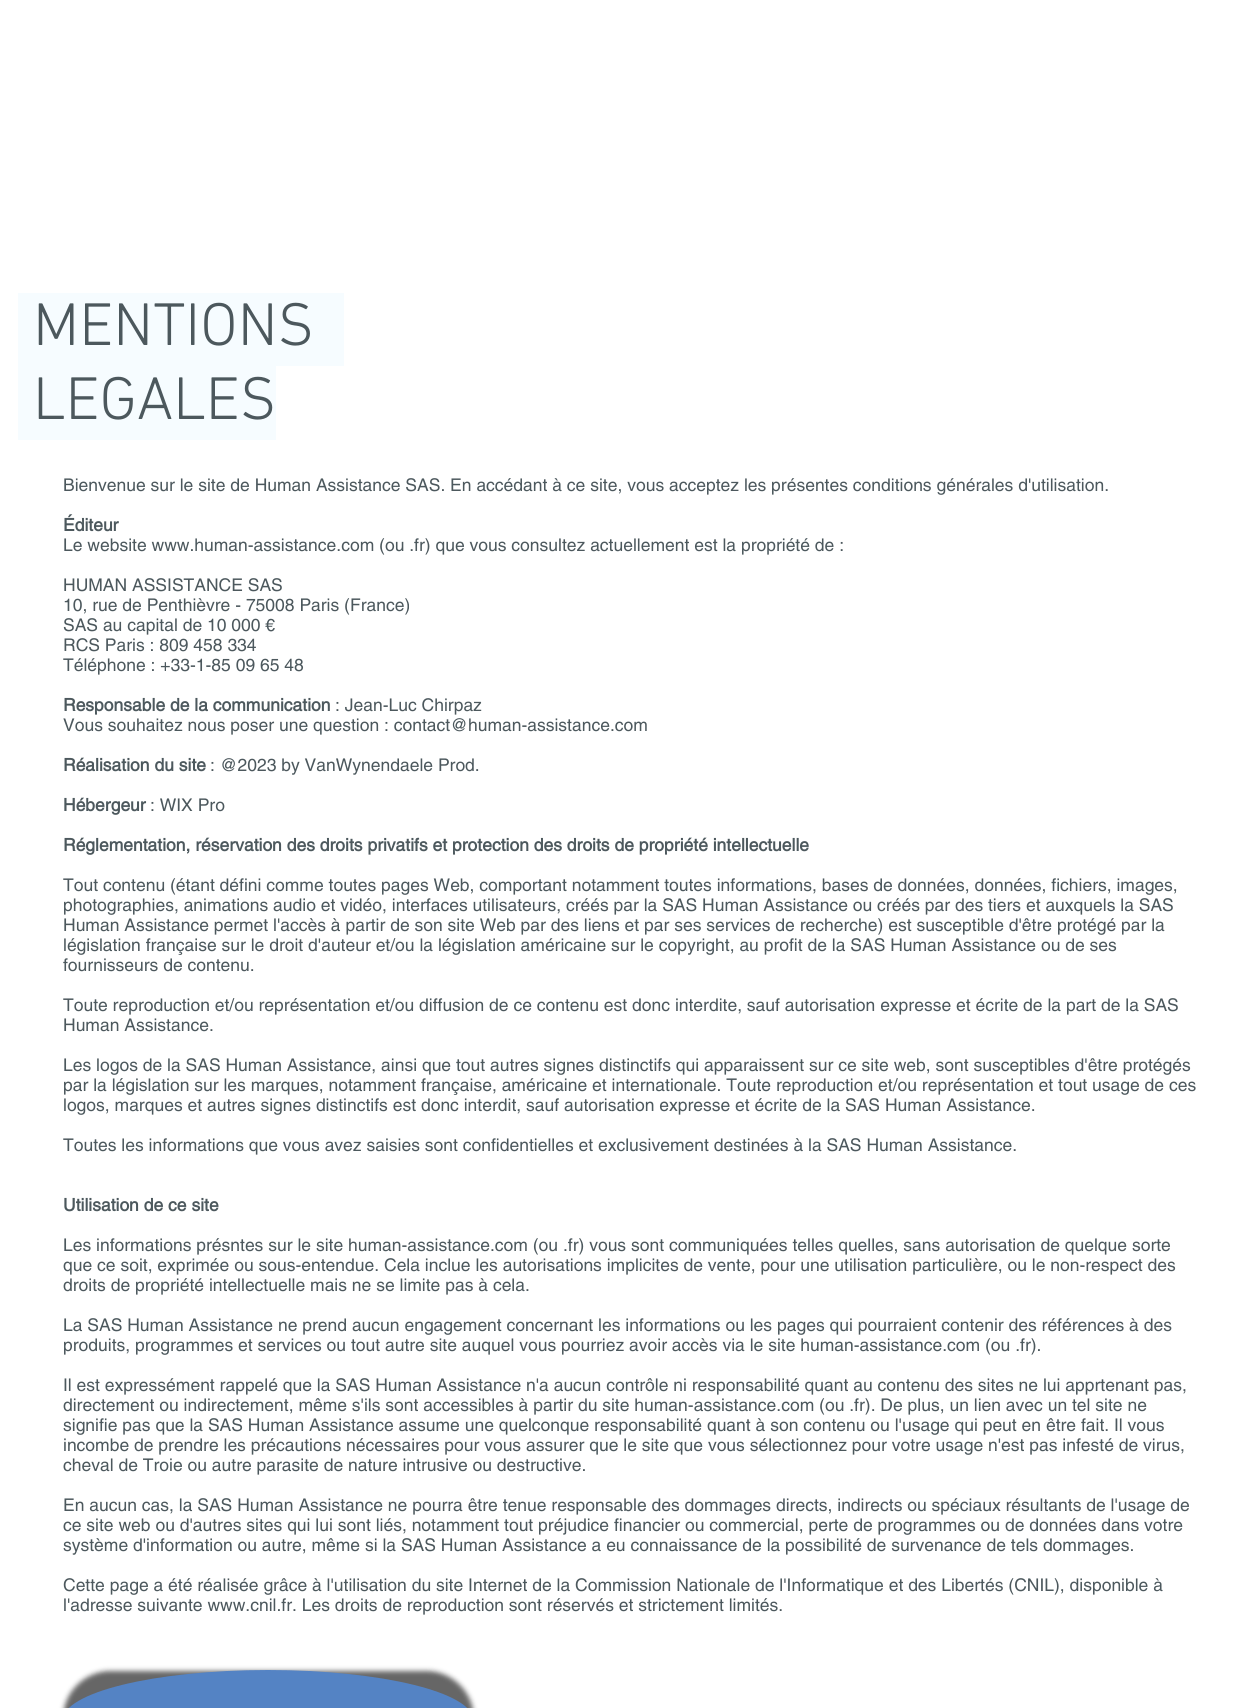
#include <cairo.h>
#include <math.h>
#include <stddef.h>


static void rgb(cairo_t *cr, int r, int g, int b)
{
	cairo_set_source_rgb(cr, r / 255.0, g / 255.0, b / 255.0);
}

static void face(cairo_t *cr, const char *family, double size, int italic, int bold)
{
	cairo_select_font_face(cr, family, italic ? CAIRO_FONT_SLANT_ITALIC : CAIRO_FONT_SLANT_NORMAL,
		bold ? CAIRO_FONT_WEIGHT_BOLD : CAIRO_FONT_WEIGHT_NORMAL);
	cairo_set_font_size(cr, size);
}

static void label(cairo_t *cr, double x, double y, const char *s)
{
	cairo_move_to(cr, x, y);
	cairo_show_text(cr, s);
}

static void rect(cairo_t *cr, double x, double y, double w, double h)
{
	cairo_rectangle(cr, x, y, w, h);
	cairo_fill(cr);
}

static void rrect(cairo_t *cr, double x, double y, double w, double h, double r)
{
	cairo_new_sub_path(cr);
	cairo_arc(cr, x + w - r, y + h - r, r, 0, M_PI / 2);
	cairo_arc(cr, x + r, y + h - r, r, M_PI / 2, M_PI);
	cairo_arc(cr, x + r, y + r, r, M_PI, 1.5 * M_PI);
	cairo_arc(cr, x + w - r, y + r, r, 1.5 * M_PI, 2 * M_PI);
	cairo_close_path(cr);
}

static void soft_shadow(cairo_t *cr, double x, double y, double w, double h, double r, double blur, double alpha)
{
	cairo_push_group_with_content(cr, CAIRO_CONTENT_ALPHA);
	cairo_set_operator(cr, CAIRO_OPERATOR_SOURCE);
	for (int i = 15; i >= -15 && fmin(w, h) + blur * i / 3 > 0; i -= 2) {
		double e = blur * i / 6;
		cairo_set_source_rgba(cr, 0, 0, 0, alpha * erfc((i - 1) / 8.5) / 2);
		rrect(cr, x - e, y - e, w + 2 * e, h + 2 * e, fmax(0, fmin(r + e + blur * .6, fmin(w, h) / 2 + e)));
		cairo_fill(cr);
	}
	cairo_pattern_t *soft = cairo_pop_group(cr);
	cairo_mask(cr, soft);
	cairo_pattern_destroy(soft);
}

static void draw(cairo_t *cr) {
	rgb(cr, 255, 255, 255);
	cairo_paint(cr);
	rgb(cr, 246, 252, 255);
	rect(cr, 18, 293, 326, 73);
	face(cr, "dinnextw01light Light", 61.25, 0, 0);
	rgb(cr, 76, 88, 93);
	label(cr, 33, 345, "MENTIONS");
	rgb(cr, 246, 252, 255);
	rect(cr, 18, 366, 258, 74);
	rgb(cr, 76, 88, 93);
	label(cr, 33, 419, "LEGALES");
	face(cr, "helvetica", 17.5, 0, 0);
	label(cr, 63, 491, "Bienvenue sur le site de Human Assistance SAS. En accédant à ce site, vous acceptez les présentes conditions générales d'utilisation.");
	face(cr, "helvetica", 17.5, 0, 1);
	label(cr, 63, 531, "Éditeur");
	face(cr, "helvetica", 17.5, 0, 0);
	label(cr, 63, 551, "Le website www.human-assistance.com (ou .fr) que vous consultez actuellement est la propriété de :");
	label(cr, 63, 591, "HUMAN ASSISTANCE SAS");
	label(cr, 63, 611, "10, rue de Penthièvre - 75008 Paris (France)");
	label(cr, 63, 631, "SAS au capital de 10 000 €");
	label(cr, 63, 651, "RCS Paris : 809 458 334");
	label(cr, 63, 671, "Téléphone : +33-1-85 09 65 48");
	face(cr, "helvetica", 17.5, 0, 1);
	label(cr, 63, 711, "Responsable de la communication");
	face(cr, "helvetica", 17.5, 0, 0);
	label(cr, 335, 711, ": Jean-Luc Chirpaz");
	label(cr, 63, 731, "Vous souhaitez nous poser une question : contact@human-assistance.com");
	face(cr, "helvetica", 17.5, 0, 1);
	label(cr, 63, 771, "Réalisation du site");
	face(cr, "helvetica", 17.5, 0, 0);
	label(cr, 210, 771, ": @2023 by VanWynendaele Prod.");
	face(cr, "helvetica", 17.5, 0, 1);
	label(cr, 63, 811, "Hébergeur");
	face(cr, "helvetica", 17.5, 0, 0);
	label(cr, 150, 811, ": WIX Pro");
	face(cr, "helvetica", 17.5, 0, 1);
	label(cr, 63, 851, "Réglementation, réservation des droits privatifs et protection des droits de propriété intellectuelle");
	face(cr, "helvetica", 17.5, 0, 0);
	label(cr, 63, 891, "Tout contenu (étant défini comme toutes pages Web, comportant notamment toutes informations, bases de données, données, fichiers, images,");
	label(cr, 63, 911, "photographies, animations audio et vidéo, interfaces utilisateurs, créés par la SAS Human Assistance ou créés par des tiers et auxquels la SAS");
	label(cr, 63, 931, "Human Assistance permet l'accès à partir de son site Web par des liens et par ses services de recherche) est susceptible d'être protégé par la");
	label(cr, 63, 951, "législation française sur le droit d'auteur et/ou la législation américaine sur le copyright, au profit de la SAS Human Assistance ou de ses");
	label(cr, 63, 971, "fournisseurs de contenu.");
	label(cr, 63, 1011, "Toute reproduction et/ou représentation et/ou diffusion de ce contenu est donc interdite, sauf autorisation expresse et écrite de la part de la SAS");
	label(cr, 63, 1031, "Human Assistance.");
	label(cr, 63, 1071, "Les logos de la SAS Human Assistance, ainsi que tout autres signes distinctifs qui apparaissent sur ce site web, sont susceptibles d'être protégés");
	label(cr, 63, 1091, "par la législation sur les marques, notamment française, américaine et internationale. Toute reproduction et/ou représentation et tout usage de ces");
	label(cr, 63, 1111, "logos, marques et autres signes distinctifs est donc interdit, sauf autorisation expresse et écrite de la SAS Human Assistance.");
	label(cr, 63, 1151, "Toutes les informations que vous avez saisies sont confidentielles et exclusivement destinées à la SAS Human Assistance.");
	face(cr, "helvetica", 17.5, 0, 1);
	label(cr, 63, 1211, "Utilisation de ce site");
	face(cr, "helvetica", 17.5, 0, 0);
	label(cr, 63, 1251, "Les informations présntes sur le site human-assistance.com (ou .fr) vous sont communiquées telles quelles, sans autorisation de quelque sorte");
	label(cr, 63, 1271, "que ce soit, exprimée ou sous-entendue. Cela inclue les autorisations implicites de vente, pour une utilisation particulière, ou le non-respect des");
	label(cr, 63, 1291, "droits de propriété intellectuelle mais ne se limite pas à cela.");
	label(cr, 63, 1331, "La SAS Human Assistance ne prend aucun engagement concernant les informations ou les pages qui pourraient contenir des références à des");
	label(cr, 63, 1351, "produits, programmes et services ou tout autre site auquel vous pourriez avoir accès via le site human-assistance.com (ou .fr).");
	label(cr, 63, 1391, "Il est expressément rappelé que la SAS Human Assistance n'a aucun contrôle ni responsabilité quant au contenu des sites ne lui apprtenant pas,");
	label(cr, 63, 1411, "directement ou indirectement, même s'ils sont accessibles à partir du site human-assistance.com (ou .fr). De plus, un lien avec un tel site ne");
	label(cr, 63, 1431, "signifie pas que la SAS Human Assistance assume une quelconque responsabilité quant à son contenu ou l'usage qui peut en être fait. Il vous");
	label(cr, 63, 1451, "incombe de prendre les précautions nécessaires pour vous assurer que le site que vous sélectionnez pour votre usage n'est pas infesté de virus,");
	label(cr, 63, 1471, "cheval de Troie ou autre parasite de nature intrusive ou destructive.");
	label(cr, 63, 1511, "En aucun cas, la SAS Human Assistance ne pourra être tenue responsable des dommages directs, indirects ou spéciaux résultants de l'usage de");
	label(cr, 63, 1531, "ce site web ou d'autres sites qui lui sont liés, notamment tout préjudice financier ou commercial, perte de programmes ou de données dans votre");
	label(cr, 63, 1551, "système d'information ou autre, même si la SAS Human Assistance a eu connaissance de la possibilité de survenance de tels dommages.");
	label(cr, 63, 1591, "Cette page a été réalisée grâce à l'utilisation du site Internet de la Commission Nationale de l'Informatique et des Libertés (CNIL), disponible à");
	label(cr, 63, 1611, "l'adresse suivante www.cnil.fr. Les droits de reproduction sont réservés et strictement limités.");
	rgb(cr, 0, 0, 0);
	soft_shadow(cr, 63, 1671, 411, 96, 51, 2.5, 0.6);
	rgb(cr, 84, 131, 196);
	cairo_new_path(cr);
	cairo_move_to(cr, 268, 1670);
	cairo_curve_to(cr, 381.5, 1670, 473.5, 1692.5, 473.5, 1720.5);
	cairo_curve_to(cr, 473.5, 1748.5, 381.5, 1771, 268, 1771);
	cairo_curve_to(cr, 154.5, 1771, 62.5, 1748.5, 62.5, 1720.5);
	cairo_curve_to(cr, 62.5, 1692.5, 154.5, 1670, 268, 1670);
	cairo_close_path(cr);
	cairo_fill(cr);
}

int main(void) {
	cairo_surface_t *surface = cairo_image_surface_create(CAIRO_FORMAT_RGB24, 1257, 1708);
	cairo_t *cr = cairo_create(surface);
	cairo_font_options_t *options = cairo_font_options_create();
	cairo_font_options_set_hint_metrics(options, CAIRO_HINT_METRICS_OFF);
	cairo_font_options_set_hint_style(options, CAIRO_HINT_STYLE_NONE);
	cairo_set_font_options(cr, options);
	cairo_set_miter_limit(cr, 4);
	draw(cr);
	cairo_surface_write_to_png(surface, "render.png");
	cairo_font_options_destroy(options);
	cairo_destroy(cr);
	cairo_surface_destroy(surface);
	return 0;
}
